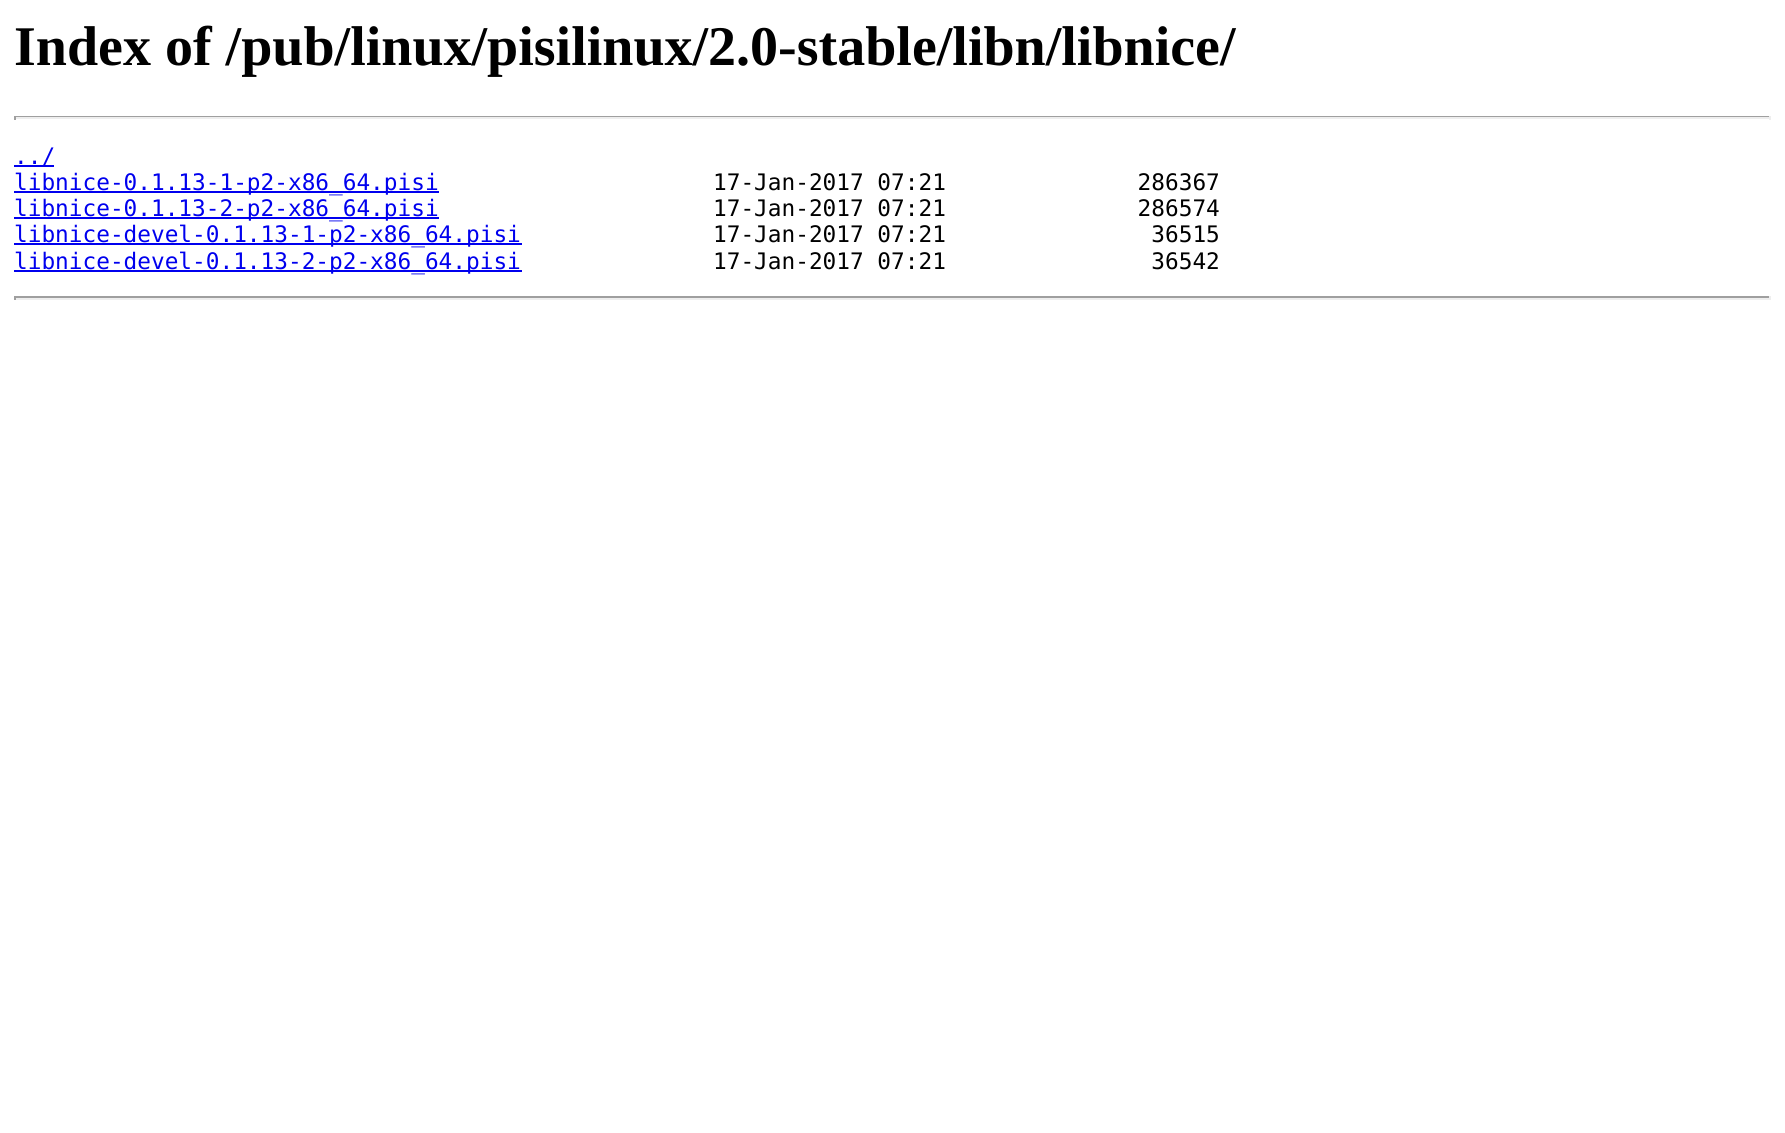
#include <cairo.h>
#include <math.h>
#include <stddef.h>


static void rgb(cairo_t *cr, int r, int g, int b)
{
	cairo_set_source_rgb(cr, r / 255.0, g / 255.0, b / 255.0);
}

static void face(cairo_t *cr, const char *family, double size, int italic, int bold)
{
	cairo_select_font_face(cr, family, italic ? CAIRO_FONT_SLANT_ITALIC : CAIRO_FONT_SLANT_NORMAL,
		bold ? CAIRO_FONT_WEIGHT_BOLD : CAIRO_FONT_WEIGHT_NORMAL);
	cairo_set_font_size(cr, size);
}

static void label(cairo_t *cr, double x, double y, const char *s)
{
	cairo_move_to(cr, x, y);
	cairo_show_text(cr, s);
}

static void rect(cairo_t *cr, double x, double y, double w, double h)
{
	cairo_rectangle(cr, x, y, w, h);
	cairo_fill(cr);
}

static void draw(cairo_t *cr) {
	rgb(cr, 255, 255, 255);
	cairo_paint(cr);
	face(cr, "Liberation Serif", 56, 0, 1);
	rgb(cr, 0, 0, 0);
	label(cr, 14, 65, "Index of /pub/linux/pisilinux/2.0-stable/libn/libnice/");
	rgb(cr, 159, 159, 159);
	rect(cr, 14, 116, 1757, 1);
	rgb(cr, 238, 238, 238);
	rect(cr, 1769, 116, 2, 4);
	rect(cr, 14, 117, 1757, 2);
	rgb(cr, 159, 159, 159);
	rect(cr, 14, 116, 2, 4);
	rgb(cr, 0, 0, 238);
	rect(cr, 14, 165, 40, 2);
	face(cr, "DejaVu Sans Mono", 22.75, 0, 0);
	label(cr, 14, 164, "../");
	rect(cr, 14, 191, 425, 2);
	label(cr, 14, 190, "libnice-0.1.13-1-p2-x86_64.pisi");
	rgb(cr, 0, 0, 0);
	label(cr, 713, 190, "17-Jan-2017 07:21              286367");
	rgb(cr, 0, 0, 238);
	rect(cr, 14, 217, 425, 2);
	label(cr, 14, 216, "libnice-0.1.13-2-p2-x86_64.pisi");
	rgb(cr, 0, 0, 0);
	label(cr, 713, 216, "17-Jan-2017 07:21              286574");
	rgb(cr, 0, 0, 238);
	rect(cr, 14, 243, 508, 2);
	label(cr, 14, 242, "libnice-devel-0.1.13-1-p2-x86_64.pisi");
	rgb(cr, 0, 0, 0);
	label(cr, 713, 242, "17-Jan-2017 07:21               36515");
	rgb(cr, 0, 0, 238);
	rect(cr, 14, 270, 508, 2);
	label(cr, 14, 269, "libnice-devel-0.1.13-2-p2-x86_64.pisi");
	rgb(cr, 0, 0, 0);
	label(cr, 713, 269, "17-Jan-2017 07:21               36542");
	rgb(cr, 159, 159, 159);
	rect(cr, 14, 296, 1757, 2);
	rgb(cr, 238, 238, 238);
	rect(cr, 1769, 296, 2, 4);
	rect(cr, 14, 298, 1757, 2);
	rgb(cr, 159, 159, 159);
	rect(cr, 14, 296, 2, 4);
}

int main(void) {
	cairo_surface_t *surface = cairo_image_surface_create(CAIRO_FORMAT_RGB24, 1785, 1133);
	cairo_t *cr = cairo_create(surface);
	cairo_font_options_t *options = cairo_font_options_create();
	cairo_font_options_set_hint_metrics(options, CAIRO_HINT_METRICS_OFF);
	cairo_font_options_set_hint_style(options, CAIRO_HINT_STYLE_NONE);
	cairo_set_font_options(cr, options);
	cairo_set_miter_limit(cr, 4);
	draw(cr);
	cairo_surface_write_to_png(surface, "render.png");
	cairo_font_options_destroy(options);
	cairo_destroy(cr);
	cairo_surface_destroy(surface);
	return 0;
}
